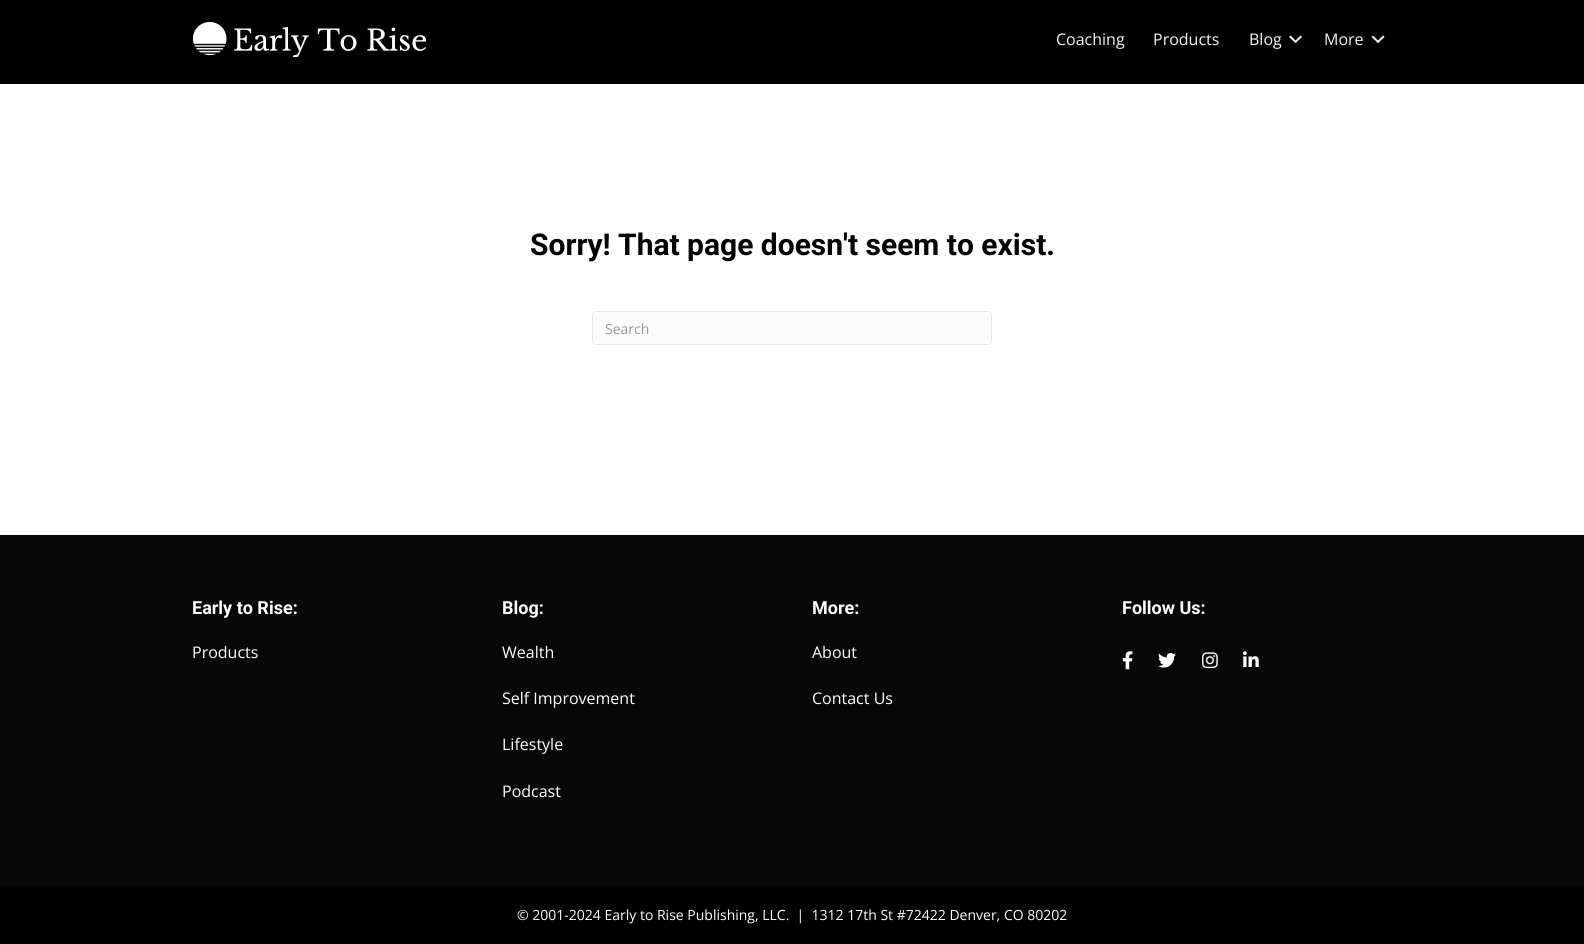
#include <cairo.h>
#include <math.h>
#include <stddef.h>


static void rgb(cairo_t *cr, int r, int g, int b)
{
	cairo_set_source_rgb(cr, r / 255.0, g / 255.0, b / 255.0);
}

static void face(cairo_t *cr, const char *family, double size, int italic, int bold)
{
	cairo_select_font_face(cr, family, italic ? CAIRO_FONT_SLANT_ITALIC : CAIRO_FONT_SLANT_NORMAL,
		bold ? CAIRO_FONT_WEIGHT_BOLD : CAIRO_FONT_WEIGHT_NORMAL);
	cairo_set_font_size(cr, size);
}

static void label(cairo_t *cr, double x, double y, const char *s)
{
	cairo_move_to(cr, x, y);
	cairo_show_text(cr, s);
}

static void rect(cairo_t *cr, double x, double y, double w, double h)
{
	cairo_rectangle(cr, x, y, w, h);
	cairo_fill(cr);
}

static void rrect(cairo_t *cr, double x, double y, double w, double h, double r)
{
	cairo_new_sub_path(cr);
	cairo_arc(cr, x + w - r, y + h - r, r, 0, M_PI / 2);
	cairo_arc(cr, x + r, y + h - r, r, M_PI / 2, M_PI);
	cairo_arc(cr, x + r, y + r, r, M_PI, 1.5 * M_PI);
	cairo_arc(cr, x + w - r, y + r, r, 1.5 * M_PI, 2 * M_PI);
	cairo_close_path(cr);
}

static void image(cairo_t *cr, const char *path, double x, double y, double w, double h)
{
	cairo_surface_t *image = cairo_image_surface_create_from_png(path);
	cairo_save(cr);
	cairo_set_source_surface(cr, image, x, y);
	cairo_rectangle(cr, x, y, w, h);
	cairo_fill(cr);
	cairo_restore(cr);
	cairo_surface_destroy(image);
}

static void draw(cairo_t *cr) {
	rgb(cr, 255, 255, 255);
	cairo_paint(cr);
	rgb(cr, 0, 0, 0);
	rect(cr, 0, 0, 1584, 84);
	image(cr, "image0.png", 193, 22, 233, 35);
	face(cr, "Open Sans", 16, 0, 0);
	rgb(cr, 245, 245, 245);
	label(cr, 1056, 45, "Coaching");
	label(cr, 1153, 45, "Products");
	label(cr, 1249, 45, "Blog");
	cairo_new_path(cr);
	cairo_move_to(cr, 1300.5, 35.5);
	cairo_line_to(cr, 1302, 37);
	cairo_line_to(cr, 1295.5, 43);
	cairo_line_to(cr, 1294, 42);
	cairo_close_path(cr);
	cairo_fill(cr);
	cairo_new_path(cr);
	cairo_move_to(cr, 1290.5, 35.5);
	cairo_line_to(cr, 1297, 42);
	cairo_line_to(cr, 1295.5, 43);
	cairo_line_to(cr, 1289, 37);
	cairo_close_path(cr);
	cairo_fill(cr);
	label(cr, 1324, 45, "More");
	cairo_new_path(cr);
	cairo_move_to(cr, 1383, 35.5);
	cairo_line_to(cr, 1384.5, 37);
	cairo_line_to(cr, 1378, 43);
	cairo_line_to(cr, 1376.5, 42);
	cairo_close_path(cr);
	cairo_fill(cr);
	cairo_new_path(cr);
	cairo_move_to(cr, 1373, 35.5);
	cairo_line_to(cr, 1379.5, 42);
	cairo_line_to(cr, 1378, 43);
	cairo_line_to(cr, 1371.5, 37);
	cairo_close_path(cr);
	cairo_fill(cr);
	face(cr, "Roboto", 30, 0, 1);
	rgb(cr, 0, 0, 0);
	label(cr, 530, 255, "Sorry! That page doesn't seem to exist.");
	rgb(cr, 252, 252, 252);
	rrect(cr, 592.5, 311.5, 399, 33, 3.5);
	cairo_fill_preserve(cr);
	rgb(cr, 230, 230, 230);
	cairo_set_line_width(cr, 1);
	cairo_stroke(cr);
	face(cr, "Open Sans", 14, 0, 0);
	rgb(cr, 151, 151, 151);
	label(cr, 605, 334, "Search");
	rgb(cr, 7, 7, 7);
	rect(cr, 0, 535, 1584, 351);
	face(cr, "Roboto", 18, 0, 1);
	rgb(cr, 255, 255, 255);
	label(cr, 192, 614, "Early to Rise:");
	face(cr, "Open Sans", 16, 0, 0);
	label(cr, 192, 658, "Products");
	face(cr, "Roboto", 18, 0, 1);
	label(cr, 502, 614, "Blog:");
	face(cr, "Open Sans", 16, 0, 0);
	label(cr, 502, 658, "Wealth");
	label(cr, 502, 704, "Self Improvement");
	label(cr, 502, 750, "Lifestyle");
	label(cr, 502, 797, "Podcast");
	face(cr, "Roboto", 18, 0, 1);
	label(cr, 812, 614, "More:");
	face(cr, "Open Sans", 16, 0, 0);
	label(cr, 812, 658, "About");
	label(cr, 812, 704, "Contact Us");
	face(cr, "Roboto", 18, 0, 1);
	label(cr, 1122, 614, "Follow Us:");
	image(cr, "image1.png", 1122, 651, 11, 19);
	image(cr, "image2.png", 1158, 652, 18, 16);
	image(cr, "image3.png", 1202, 652, 16, 17);
	image(cr, "image4.png", 1243, 651, 16, 16);
	rgb(cr, 0, 0, 0);
	rect(cr, 0, 886, 1584, 58);
	face(cr, "Open Sans", 14, 0, 0);
	rgb(cr, 255, 255, 255);
	label(cr, 517, 920, "© 2001-2024 Early to Rise Publishing, LLC.  |  1312 17th St #72422 Denver, CO 80202");
}

int main(void) {
	cairo_surface_t *surface = cairo_image_surface_create(CAIRO_FORMAT_RGB24, 1584, 944);
	cairo_t *cr = cairo_create(surface);
	cairo_font_options_t *options = cairo_font_options_create();
	cairo_font_options_set_hint_metrics(options, CAIRO_HINT_METRICS_OFF);
	cairo_font_options_set_hint_style(options, CAIRO_HINT_STYLE_NONE);
	cairo_set_font_options(cr, options);
	cairo_set_miter_limit(cr, 4);
	draw(cr);
	cairo_surface_write_to_png(surface, "render.png");
	cairo_font_options_destroy(options);
	cairo_destroy(cr);
	cairo_surface_destroy(surface);
	return 0;
}
